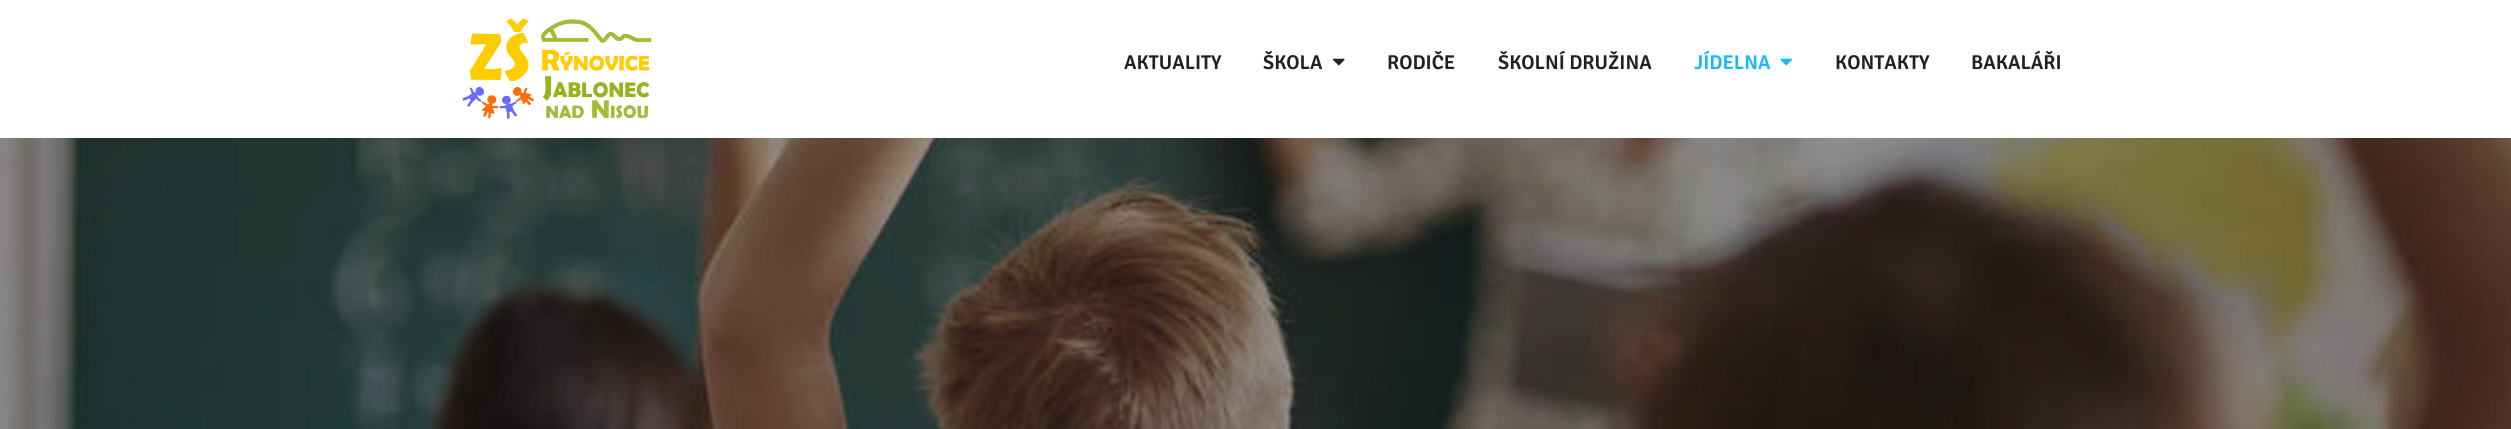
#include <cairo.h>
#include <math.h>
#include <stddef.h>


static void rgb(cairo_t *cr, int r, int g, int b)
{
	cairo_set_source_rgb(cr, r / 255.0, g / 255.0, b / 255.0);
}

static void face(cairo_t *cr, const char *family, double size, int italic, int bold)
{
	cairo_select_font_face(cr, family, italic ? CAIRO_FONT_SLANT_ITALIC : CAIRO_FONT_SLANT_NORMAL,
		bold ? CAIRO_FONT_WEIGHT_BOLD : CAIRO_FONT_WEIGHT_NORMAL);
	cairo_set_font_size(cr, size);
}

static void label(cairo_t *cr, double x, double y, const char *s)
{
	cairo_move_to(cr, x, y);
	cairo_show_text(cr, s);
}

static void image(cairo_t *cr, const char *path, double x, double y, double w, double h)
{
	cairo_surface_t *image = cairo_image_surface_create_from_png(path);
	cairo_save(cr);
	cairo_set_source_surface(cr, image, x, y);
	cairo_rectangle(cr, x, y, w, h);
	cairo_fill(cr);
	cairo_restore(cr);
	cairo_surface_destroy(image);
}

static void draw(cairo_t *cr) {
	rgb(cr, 255, 255, 255);
	cairo_paint(cr);
	image(cr, "image0.png", 462, 18, 190, 101);
	face(cr, "Signika SemiBold", 20, 0, 0);
	rgb(cr, 33, 33, 33);
	label(cr, 1124, 69, "AKTUALITY");
	label(cr, 1263, 69, "ŠKOLA");
	image(cr, "image1.png", 1333, 58, 12, 8);
	label(cr, 1387, 69, "RODIČE");
	label(cr, 1498, 69, "ŠKOLNÍ DRUŽINA");
	rgb(cr, 24, 184, 255);
	label(cr, 1694, 69, "JÍDELNA");
	image(cr, "image2.png", 1780, 58, 12, 8);
	rgb(cr, 33, 33, 33);
	label(cr, 1835, 69, "KONTAKTY");
	label(cr, 1971, 69, "BAKALÁŘI");
	image(cr, "image3.png", 0, 138, 2511, 291);
}

int main(void) {
	cairo_surface_t *surface = cairo_image_surface_create(CAIRO_FORMAT_RGB24, 2511, 429);
	cairo_t *cr = cairo_create(surface);
	cairo_font_options_t *options = cairo_font_options_create();
	cairo_font_options_set_hint_metrics(options, CAIRO_HINT_METRICS_OFF);
	cairo_font_options_set_hint_style(options, CAIRO_HINT_STYLE_NONE);
	cairo_set_font_options(cr, options);
	cairo_set_miter_limit(cr, 4);
	draw(cr);
	cairo_surface_write_to_png(surface, "render.png");
	cairo_font_options_destroy(options);
	cairo_destroy(cr);
	cairo_surface_destroy(surface);
	return 0;
}
